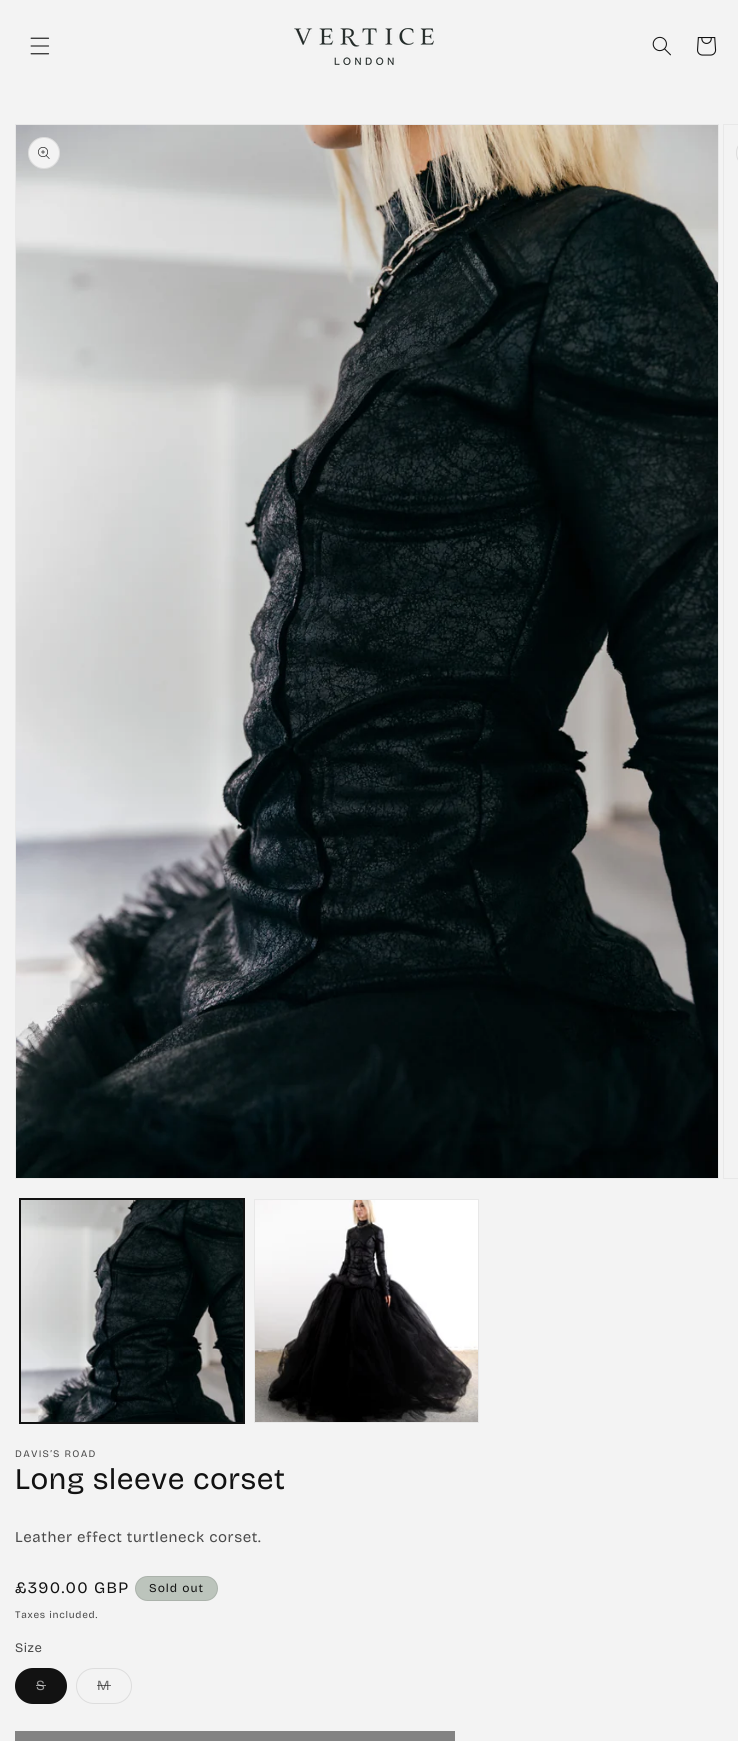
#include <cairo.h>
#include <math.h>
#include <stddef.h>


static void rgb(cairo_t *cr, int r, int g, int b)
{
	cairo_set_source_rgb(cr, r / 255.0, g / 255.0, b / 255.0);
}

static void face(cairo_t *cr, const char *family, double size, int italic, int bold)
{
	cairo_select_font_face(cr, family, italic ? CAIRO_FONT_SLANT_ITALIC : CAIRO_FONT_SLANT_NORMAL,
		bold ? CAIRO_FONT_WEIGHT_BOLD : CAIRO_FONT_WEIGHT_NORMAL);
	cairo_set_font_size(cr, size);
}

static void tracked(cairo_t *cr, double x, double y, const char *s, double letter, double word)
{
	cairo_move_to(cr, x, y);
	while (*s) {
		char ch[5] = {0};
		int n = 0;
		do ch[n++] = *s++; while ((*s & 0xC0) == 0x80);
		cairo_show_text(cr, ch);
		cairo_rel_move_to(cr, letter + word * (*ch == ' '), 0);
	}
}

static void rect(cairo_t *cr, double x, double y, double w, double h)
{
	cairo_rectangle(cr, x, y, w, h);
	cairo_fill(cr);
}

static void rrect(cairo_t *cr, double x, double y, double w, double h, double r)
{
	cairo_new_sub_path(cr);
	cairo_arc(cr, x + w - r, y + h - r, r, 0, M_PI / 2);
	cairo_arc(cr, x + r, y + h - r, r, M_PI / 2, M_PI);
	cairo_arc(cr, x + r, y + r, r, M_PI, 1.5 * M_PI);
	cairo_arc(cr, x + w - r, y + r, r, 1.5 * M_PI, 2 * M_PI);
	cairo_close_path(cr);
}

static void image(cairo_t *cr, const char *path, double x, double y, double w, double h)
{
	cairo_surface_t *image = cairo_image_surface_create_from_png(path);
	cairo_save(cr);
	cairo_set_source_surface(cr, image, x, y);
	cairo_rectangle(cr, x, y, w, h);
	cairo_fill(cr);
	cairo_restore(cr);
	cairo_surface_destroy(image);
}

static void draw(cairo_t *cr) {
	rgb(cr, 243, 243, 243);
	cairo_paint(cr);
	image(cr, "image0.png", 30, 37, 20, 18);
	image(cr, "image1.png", 294, 28, 140, 37);
	image(cr, "image2.png", 652, 36, 19, 20);
	image(cr, "image3.png", 697, 37, 20, 19);
	cairo_rectangle(cr, 15.5, 124.5, 703, 1054);
	rgb(cr, 232, 232, 232);
	cairo_set_line_width(cr, 1);
	cairo_stroke(cr);
	image(cr, "image4.png", 16, 125, 702, 1053);
	rgb(cr, 243, 243, 243);
	cairo_arc(cr, 44, 153, 16, 0, 2 * M_PI);
	cairo_fill(cr);
	cairo_arc(cr, 44, 153, 15.5, 0, 2 * M_PI);
	cairo_set_source_rgba(cr, 0.071, 0.071, 0.071, 0.1);
	cairo_stroke(cr);
	image(cr, "image5.png", 38, 147, 12, 12);
	cairo_rectangle(cr, 723.5, 124.5, 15, 1054);
	rgb(cr, 232, 232, 232);
	cairo_stroke(cr);
	rrect(cr, 736.5, 137.5, 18, 31, 15.5);
	rgb(cr, 221, 221, 221);
	cairo_stroke(cr);
	cairo_rectangle(cr, 19.5, 1198.5, 225, 225);
	rgb(cr, 18, 18, 18);
	cairo_stroke(cr);
	cairo_rectangle(cr, 20.5, 1199.5, 223, 223);
	cairo_stroke(cr);
	image(cr, "image6.png", 21, 1200, 222, 222);
	cairo_rectangle(cr, 254.5, 1199.5, 224, 223);
	rgb(cr, 232, 232, 232);
	cairo_stroke(cr);
	image(cr, "image7.png", 255, 1200, 223, 222);
	face(cr, "Bricolage Grotesque", 10, 0, 0);
	rgb(cr, 74, 74, 74);
	tracked(cr, 15, 1457, "DAVIS’S ROAD", 1.25, 0);
	face(cr, "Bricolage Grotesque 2", 30, 0, 0);
	rgb(cr, 18, 18, 18);
	tracked(cr, 15, 1489, "Long sleeve corset", 0.6, 0);
	face(cr, "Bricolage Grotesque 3", 15, 0, 0);
	rgb(cr, 74, 74, 74);
	tracked(cr, 15, 1542, "Leather effect turtleneck corset.", 0.6, 0);
	face(cr, "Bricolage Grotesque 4", 16, 0, 0);
	rgb(cr, 18, 18, 18);
	tracked(cr, 15, 1593, "£390.00 GBP", 1.25, 0);
	rgb(cr, 188, 196, 188);
	rrect(cr, 135, 1576, 83, 25, 12.5);
	cairo_fill(cr);
	rrect(cr, 135.5, 1576.5, 82, 24, 12);
	cairo_set_source_rgba(cr, 0.071, 0.071, 0.071, 0.1);
	cairo_stroke(cr);
	face(cr, "Bricolage Grotesque", 12, 0, 0);
	rgb(cr, 18, 18, 18);
	tracked(cr, 149, 1592, "Sold out", 1, 0);
	face(cr, "Bricolage Grotesque", 10, 0, 0);
	rgb(cr, 74, 74, 74);
	tracked(cr, 15, 1618, "Taxes included.", 0.75, 0);
	face(cr, "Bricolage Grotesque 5", 13, 0, 0);
	tracked(cr, 15, 1652, "Size", 0.5, 0);
	rgb(cr, 18, 18, 18);
	rrect(cr, 15, 1668, 52, 36, 18);
	cairo_fill(cr);
	rrect(cr, 15.5, 1668.5, 51, 35, 17.5);
	cairo_set_source_rgba(cr, 0.071, 0.071, 0.071, 0.1);
	cairo_stroke(cr);
	face(cr, "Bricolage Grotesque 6", 14, 0, 0);
	rgb(cr, 153, 153, 153);
	tracked(cr, 36, 1690, "S", 1, 0);
	cairo_set_source_rgba(cr, 0.953, 0.953, 0.953, 0.6);
	rect(cr, 36, 1685, 10, 1);
	rrect(cr, 76.5, 1668.5, 55, 35, 17.5);
	rgb(cr, 221, 221, 221);
	cairo_stroke(cr);
	rgb(cr, 108, 108, 108);
	tracked(cr, 97, 1690, "M", 1, 0);
	cairo_set_source_rgba(cr, 0.071, 0.071, 0.071, 0.6);
	rect(cr, 97, 1685, 14, 1);
	rgb(cr, 131, 131, 131);
	rect(cr, 15, 1731, 440, 10);
}

int main(void) {
	cairo_surface_t *surface = cairo_image_surface_create(CAIRO_FORMAT_RGB24, 738, 1741);
	cairo_t *cr = cairo_create(surface);
	cairo_font_options_t *options = cairo_font_options_create();
	cairo_font_options_set_hint_metrics(options, CAIRO_HINT_METRICS_OFF);
	cairo_font_options_set_hint_style(options, CAIRO_HINT_STYLE_NONE);
	cairo_set_font_options(cr, options);
	cairo_set_miter_limit(cr, 4);
	draw(cr);
	cairo_surface_write_to_png(surface, "render.png");
	cairo_font_options_destroy(options);
	cairo_destroy(cr);
	cairo_surface_destroy(surface);
	return 0;
}
